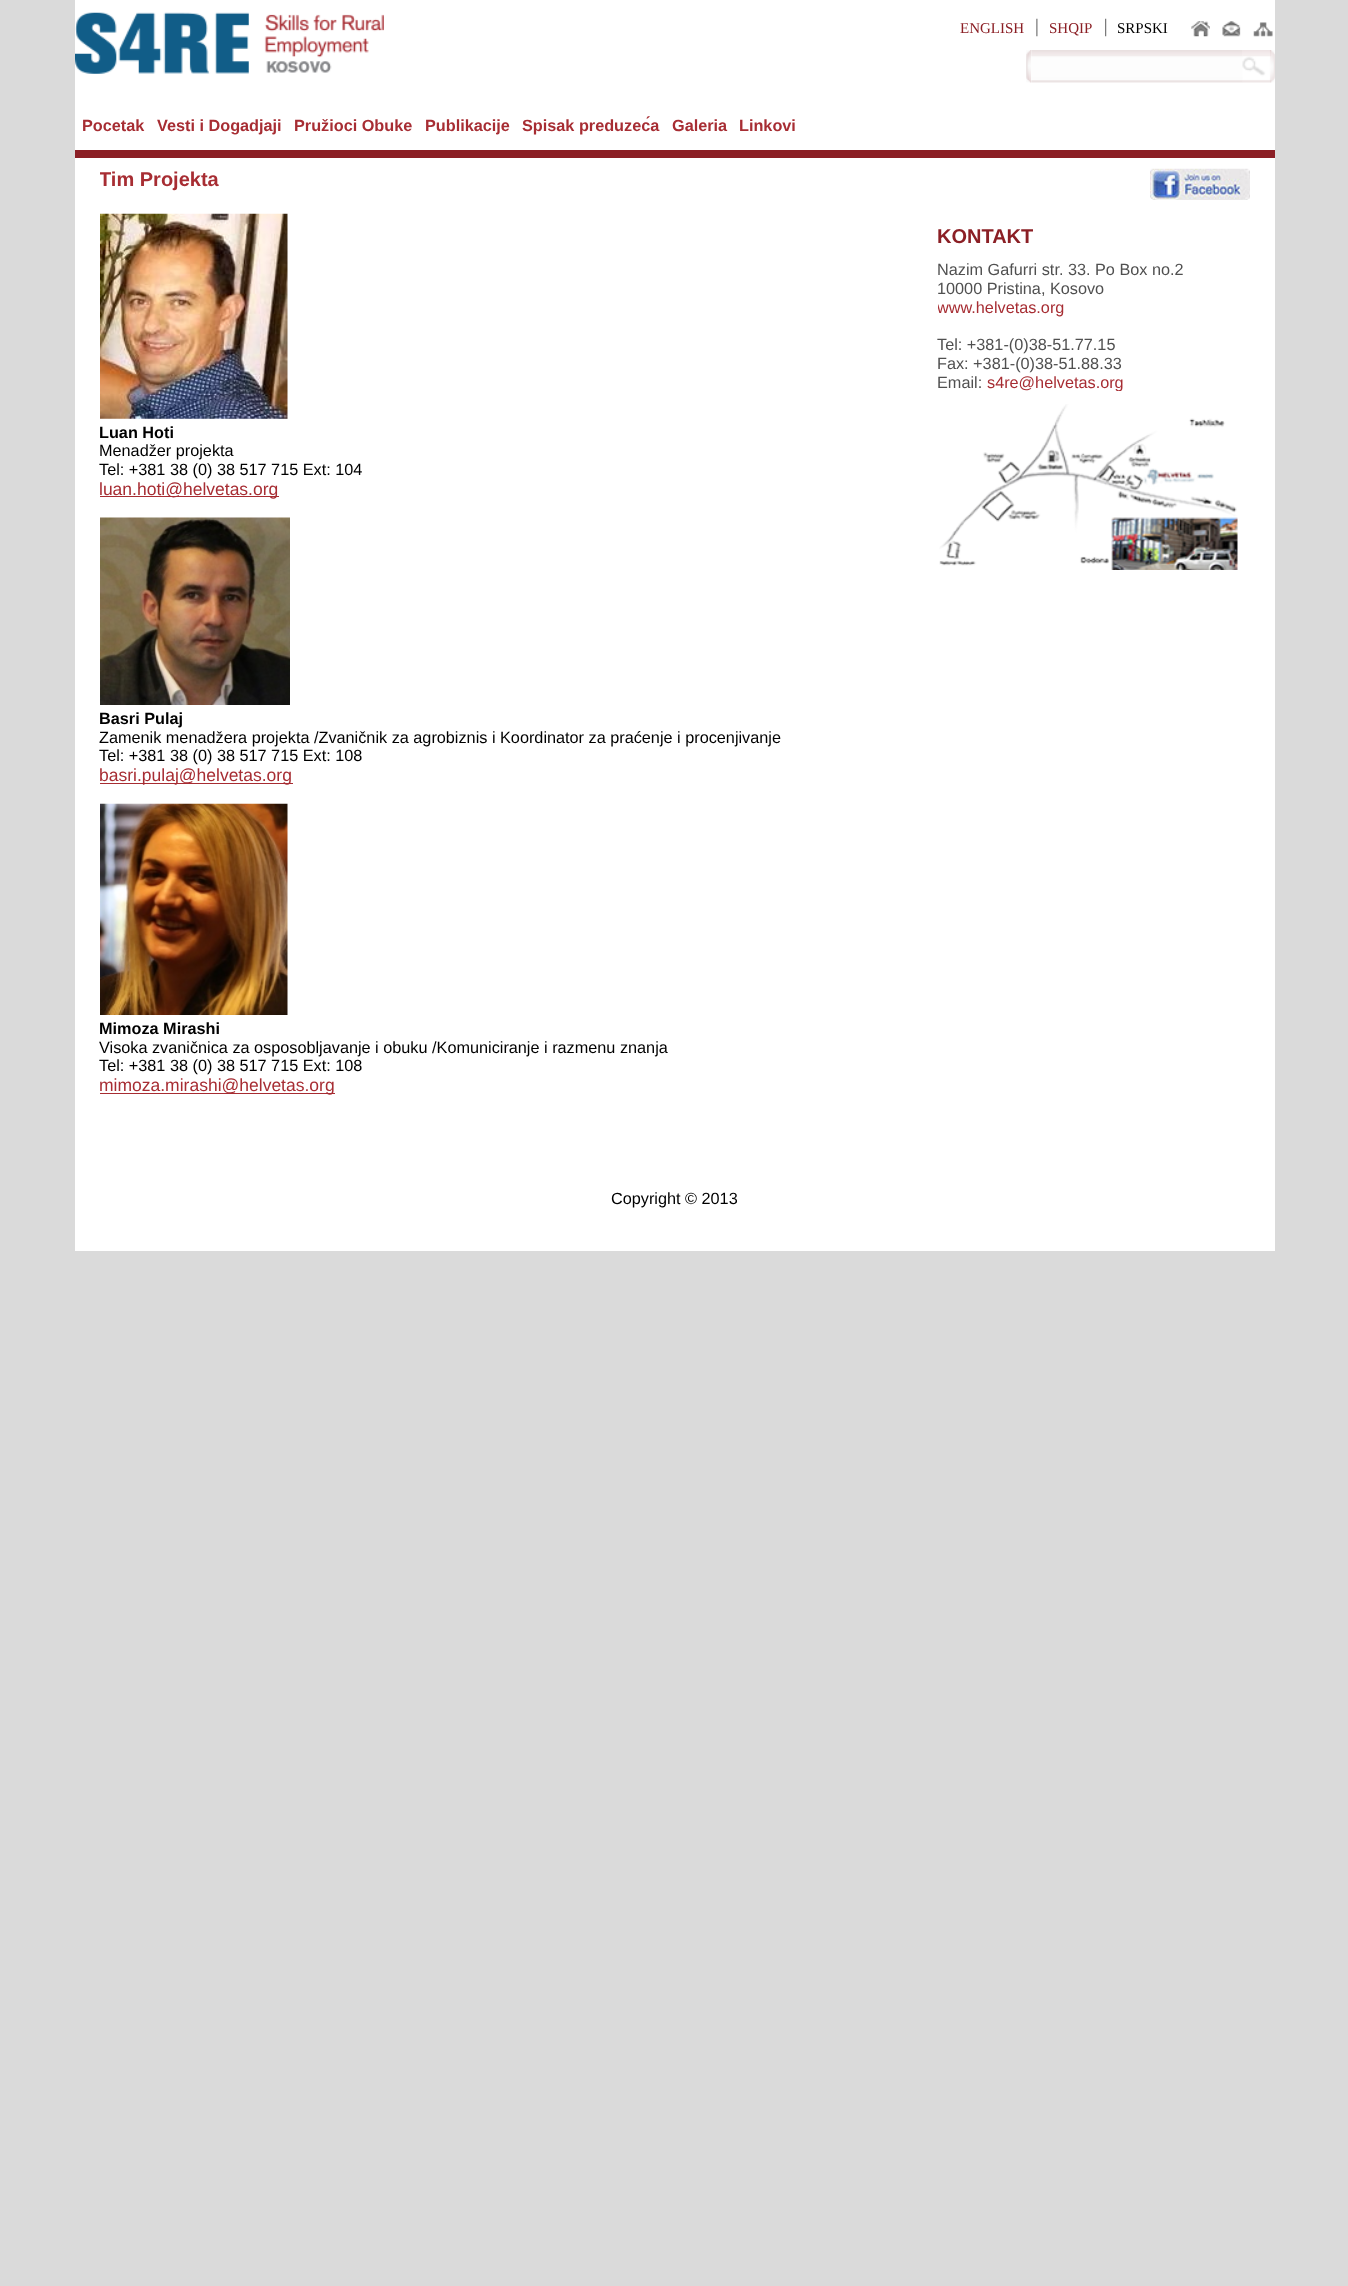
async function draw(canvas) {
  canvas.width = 1348
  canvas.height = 2286
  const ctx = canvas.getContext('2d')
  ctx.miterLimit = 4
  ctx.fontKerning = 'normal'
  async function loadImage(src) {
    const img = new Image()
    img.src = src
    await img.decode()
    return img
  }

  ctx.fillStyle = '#dadada'
  ctx.fillRect(0, 0, 1348, 2286)
  ctx.fillStyle = '#fff'
  ctx.fillRect(75, 0, 1200, 1251)
  ctx.drawImage(await loadImage('image0.png'), 75, 12, 309, 62)
  ctx.font = '15px Liberation Serif'
  ctx.fillStyle = '#8b1f25'
  ctx.fillText('ENGLISH', 960, 33)
  ctx.drawImage(await loadImage('image1.png'), 1036, 18, 2, 19)
  ctx.fillText('SHQIP', 1049, 33)
  ctx.drawImage(await loadImage('image2.png'), 1105, 18, 2, 19)
  ctx.fillStyle = '#000'
  ctx.fillText('SRPSKI', 1117, 33)
  ctx.drawImage(await loadImage('image3.png'), 1191, 21, 19, 16)
  ctx.drawImage(await loadImage('image4.png'), 1222, 21, 19, 16)
  ctx.drawImage(await loadImage('image5.png'), 1253, 22, 20, 15)
  ctx.drawImage(await loadImage('image6.png'), 1026, 50, 5, 33)
  ctx.drawImage(await loadImage('image7.png'), 1031, 50, 212, 33)
  ctx.drawImage(await loadImage('image8.png'), 1242, 50, 33, 33)
  ctx.font = 'bold 16.25px Liberation Sans'
  ctx.fillStyle = '#a72d33'
  ctx.fillText('Pocetak', 82, 131)
  ctx.fillText('Vesti i Dogadjaji', 157, 131)
  ctx.fillText('Pružioci Obuke', 294, 131)
  ctx.fillText('Publikacije', 425, 131)
  ctx.fillText('Spisak preduzeća', 522, 131)
  ctx.fillText('Galeria', 672, 131)
  ctx.fillText('Linkovi', 739, 131)
  ctx.fillStyle = '#8b1f25'
  ctx.fillRect(75, 150, 1200, 8)
  ctx.save()
  ctx.beginPath()
  ctx.rect(100, 169, 750, 22)
  ctx.clip()
  ctx.font = 'bold 20px Liberation Sans'
  ctx.fillStyle = '#a72d33'
  ctx.fillText('Tim Projekta', 99, 186)
  ctx.restore()
  ctx.drawImage(await loadImage('image9.png'), 100, 213, 188, 206)
  ctx.fillStyle = '#000'
  ctx.fillText('Luan Hoti', 99, 438)
  ctx.font = '16.25px Liberation Sans'
  ctx.fillText('Menadžer projekta', 99, 456)
  ctx.fillText('Tel: +381 38 (0) 38 517 715 Ext: 104', 99, 475)
  ctx.fillStyle = '#a72c32'
  ctx.fillRect(100, 496, 179, 1)
  ctx.font = '17.5px Liberation Sans'
  ctx.fillStyle = '#a72d33'
  ctx.fillText('luan.hoti@helvetas.org', 99, 495)
  ctx.drawImage(await loadImage('image10.png'), 100, 517, 190, 188)
  ctx.font = 'bold 16.25px Liberation Sans'
  ctx.fillStyle = '#000'
  ctx.fillText('Basri Pulaj', 99, 724)
  ctx.font = '16.25px Liberation Sans'
  ctx.fillText('Zamenik menadžera projekta /Zvaničnik za agrobiznis i Koordinator za praćenje i procenjivanje', 99, 743)
  ctx.fillText('Tel: +381 38 (0) 38 517 715 Ext: 108', 99, 761)
  ctx.fillStyle = '#a72c32'
  ctx.fillRect(100, 783, 193, 1)
  ctx.font = '17.5px Liberation Sans'
  ctx.fillStyle = '#a72d33'
  ctx.fillText('basri.pulaj@helvetas.org', 99, 781)
  ctx.drawImage(await loadImage('image11.png'), 100, 803, 188, 212)
  ctx.font = 'bold 16.25px Liberation Sans'
  ctx.fillStyle = '#000'
  ctx.fillText('Mimoza Mirashi', 99, 1034)
  ctx.font = '16.25px Liberation Sans'
  ctx.fillText('Visoka zvaničnica za osposobljavanje i obuku /Komuniciranje i razmenu znanja', 99, 1053)
  ctx.fillText('Tel: +381 38 (0) 38 517 715 Ext: 108', 99, 1071)
  ctx.fillStyle = '#a72c32'
  ctx.fillRect(100, 1093, 235, 1)
  ctx.font = '17.5px Liberation Sans'
  ctx.fillStyle = '#a72d33'
  ctx.fillText('mimoza.mirashi@helvetas.org', 99, 1091)
  ctx.drawImage(await loadImage('image12.png'), 1150, 168, 100, 32)
  ctx.font = 'bold 20px Liberation Sans'
  ctx.fillStyle = '#8b1f25'
  ctx.fillText('KONTAKT', 937, 243)
  ctx.font = '16.25px Liberation Sans'
  ctx.fillStyle = '#505050'
  ctx.fillText('Nazim Gafurri str. 33. Po Box no.2', 937, 275)
  ctx.fillText('10000 Pristina, Kosovo', 937, 294)
  ctx.save()
  ctx.beginPath()
  ctx.rect(938, 260, 312, 131)
  ctx.clip()
  ctx.fillStyle = '#a72d33'
  ctx.fillText('www.helvetas.org', 937, 313)
  ctx.restore()
  ctx.fillText('Tel: +381-(0)38-51.77.15', 937, 350)
  ctx.fillText('Fax: +381-(0)38-51.88.33', 937, 369)
  ctx.fillText('Email:', 937, 388)
  ctx.save()
  ctx.beginPath()
  ctx.rect(938, 260, 312, 131)
  ctx.clip()
  ctx.fillStyle = '#a72d33'
  ctx.fillText('s4re@helvetas.org', 987, 388)
  ctx.restore()
  ctx.drawImage(await loadImage('image13.png'), 939, 404, 299, 166)
  ctx.fillStyle = '#000'
  ctx.fillText('Copyright © 2013', 611, 1204)
}

draw(document.querySelector('canvas'))
